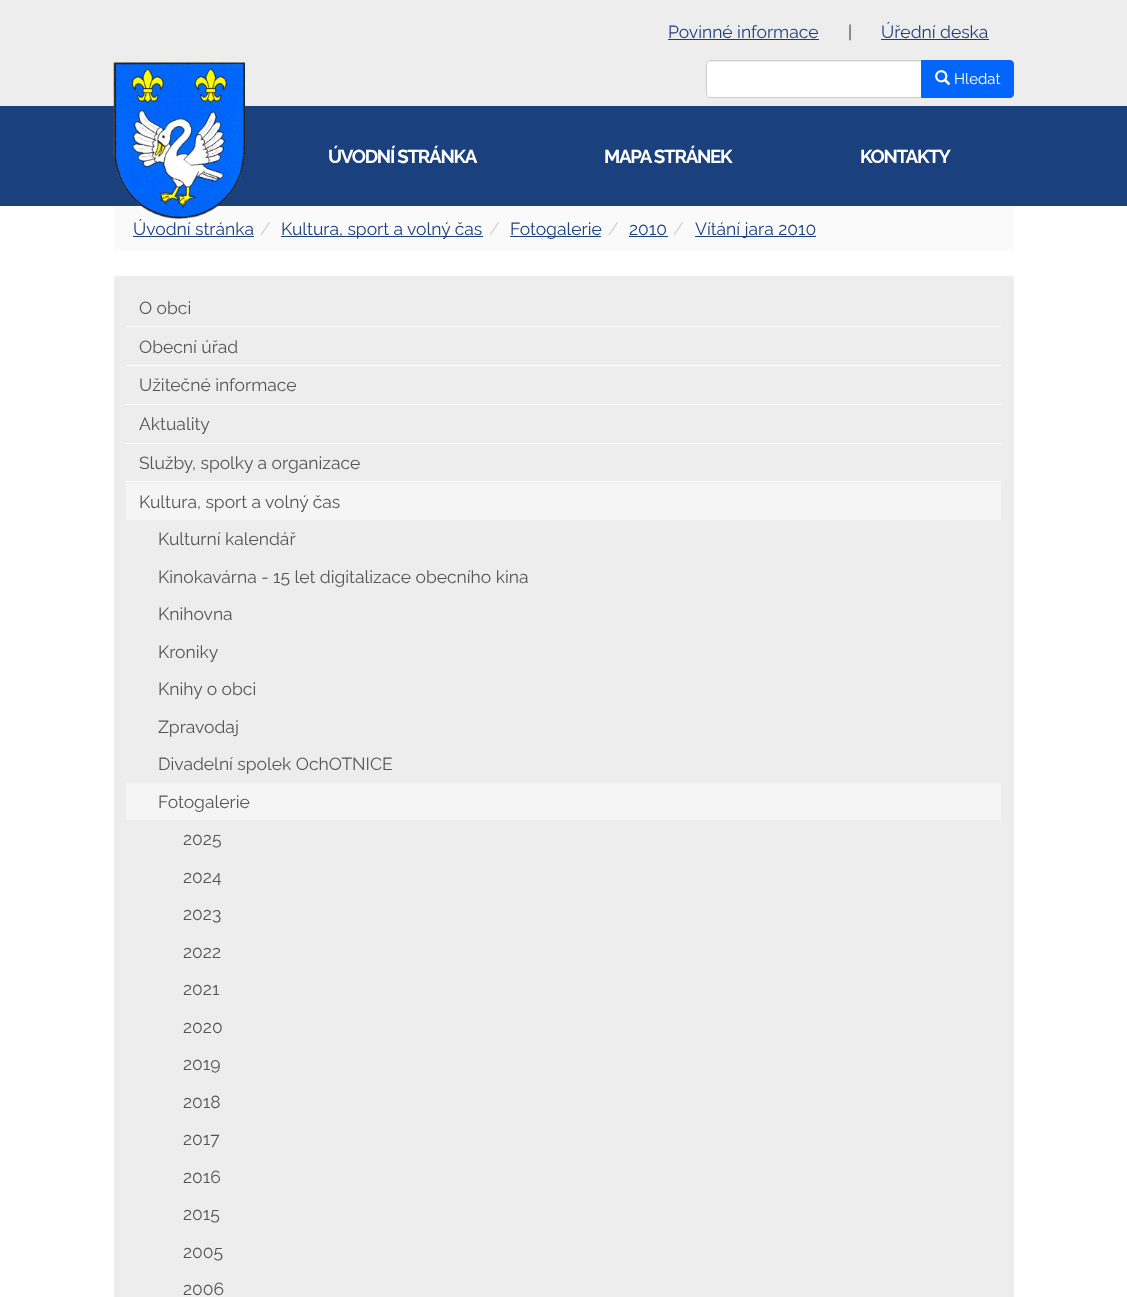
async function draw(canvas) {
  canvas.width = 1127
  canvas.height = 1297
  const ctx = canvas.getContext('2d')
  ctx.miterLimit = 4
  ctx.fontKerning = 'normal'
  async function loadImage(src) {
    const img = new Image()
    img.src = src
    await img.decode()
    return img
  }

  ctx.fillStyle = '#fff'
  ctx.fillRect(0, 0, 1127, 1297)
  ctx.fillStyle = '#ededed'
  ctx.fillRect(0, 0, 1127, 106)
  ctx.font = '17.5px Raleway'
  ctx.fillStyle = '#1b407e'
  ctx.fillText('Povinné informace', 668, 38)
  ctx.fillRect(668, 39, 151, 1)
  ctx.fillStyle = '#333'
  ctx.fillText('|', 848, 38)
  ctx.fillStyle = '#1b407e'
  ctx.fillText('Úřední deska', 881, 38)
  ctx.fillRect(881, 39, 108, 1)
  ctx.fillStyle = '#fff'
  ctx.beginPath()
  ctx.roundRect(706, 60, 217, 38, [4, 0, 0, 4])
  ctx.fill()
  ctx.fillStyle = '#ececec'
  ctx.beginPath()
  ctx.moveTo(710, 62)
  ctx.lineTo(921, 62)
  ctx.lineTo(921, 61)
  ctx.lineTo(710, 61)
  ctx.bezierCurveTo(708, 62, 708, 64, 708, 65)
  ctx.bezierCurveTo(708, 64, 709, 62, 710, 62)
  ctx.closePath()
  ctx.fill()
  ctx.beginPath()
  ctx.roundRect(706.5, 60.5, 216, 37, [3.5, 0, 0, 3.5])
  ctx.strokeStyle = '#ccc'
  ctx.stroke()
  ctx.fillStyle = '#0266fa'
  ctx.beginPath()
  ctx.roundRect(921.5, 60.5, 92, 37, [0, 3.5, 3.5, 0])
  ctx.fill()
  ctx.strokeStyle = '#0266fa'
  ctx.stroke()
  ctx.drawImage(await loadImage('image0.png'), 935, 70, 16, 15)
  ctx.font = '15px Raleway'
  ctx.fillStyle = '#fff'
  ctx.fillText('Hledat', 954, 84)
  ctx.fillStyle = '#1b407e'
  ctx.fillRect(0, 106, 1127, 100)
  ctx.fillStyle = '#fafafa'
  ctx.fillRect(114, 206, 900, 45)
  ctx.font = '17.5px Raleway'
  ctx.fillStyle = '#1b407e'
  ctx.fillText('Úvodní stránka', 133, 235)
  ctx.drawImage(await loadImage('image1.png'), 113, 62, 132, 157)
  ctx.letterSpacing = '-1.25px'
  ctx.font = 'bold 18.75px Raleway'
  ctx.fillStyle = '#fff'
  ctx.fillText('ÚVODNÍ STRÁNKA', 328, 163)
  ctx.fillText('MAPA STRÁNEK', 604, 163)
  ctx.fillText('KONTAKTY', 860, 163)
  ctx.fillStyle = '#1b407e'
  ctx.fillRect(133, 236, 121, 1)
  ctx.letterSpacing = '0px'
  ctx.font = '17.5px Raleway'
  ctx.fillStyle = '#ccc'
  ctx.fillText('/', 260, 235)
  ctx.fillStyle = '#1b407e'
  ctx.fillRect(281, 236, 202, 1)
  ctx.fillText('Kultura, sport a volný čas', 281, 235)
  ctx.fillStyle = '#ccc'
  ctx.fillText('/', 489, 235)
  ctx.fillStyle = '#1b407e'
  ctx.fillRect(510, 236, 91, 1)
  ctx.fillText('Fotogalerie', 510, 235)
  ctx.fillStyle = '#ccc'
  ctx.fillText('/', 608, 235)
  ctx.fillStyle = '#1b407e'
  ctx.fillText('2010', 629, 235)
  ctx.fillRect(629, 236, 39, 1)
  ctx.fillStyle = '#ccc'
  ctx.fillText('/', 673, 235)
  ctx.fillStyle = '#1b407e'
  ctx.fillRect(695, 236, 121, 1)
  ctx.fillText('Vítání jara 2010', 695, 235)
  ctx.fillStyle = '#ededed'
  ctx.fillRect(114, 276, 900, 1021)
  ctx.fillStyle = '#fff'
  ctx.fillRect(126, 326, 875, 1)
  ctx.fillStyle = '#555'
  ctx.fillText('O obci', 139, 314)
  ctx.fillStyle = '#fff'
  ctx.fillRect(126, 365, 875, 1)
  ctx.fillStyle = '#555'
  ctx.fillText('Obecní úřad', 139, 353)
  ctx.fillStyle = '#fff'
  ctx.fillRect(126, 404, 875, 1)
  ctx.fillStyle = '#555'
  ctx.fillText('Užitečné informace', 139, 391)
  ctx.fillStyle = '#fff'
  ctx.fillRect(126, 443, 875, 1)
  ctx.fillStyle = '#555'
  ctx.fillText('Aktuality', 139, 430)
  ctx.fillStyle = '#fff'
  ctx.fillRect(126, 481, 875, 1)
  ctx.fillStyle = '#555'
  ctx.fillText('Služby, spolky a organizace', 139, 469)
  ctx.fillStyle = '#f5f5f5'
  ctx.fillRect(126, 483, 875, 37)
  ctx.fillStyle = '#555'
  ctx.fillText('Kultura, sport a volný čas', 139, 508)
  ctx.fillText('Kulturní kalendář', 158, 545)
  ctx.fillText('Kinokavárna - 15 let digitalizace obecního kina', 158, 583)
  ctx.fillText('Knihovna', 158, 620)
  ctx.fillText('Kroniky', 158, 658)
  ctx.fillText('Knihy o obci', 158, 695)
  ctx.fillText('Zpravodaj', 158, 733)
  ctx.fillText('Divadelní spolek OchOTNICE', 158, 770)
  ctx.fillStyle = '#f5f5f5'
  ctx.fillRect(126, 783, 875, 37)
  ctx.fillStyle = '#555'
  ctx.fillText('Fotogalerie', 158, 808)
  ctx.fillText('2025', 183, 845)
  ctx.fillText('2024', 183, 883)
  ctx.fillText('2023', 183, 920)
  ctx.fillText('2022', 183, 958)
  ctx.fillText('2021', 183, 995)
  ctx.fillText('2020', 183, 1033)
  ctx.fillText('2019', 183, 1070)
  ctx.fillText('2018', 183, 1108)
  ctx.fillText('2017', 183, 1145)
  ctx.fillText('2016', 183, 1183)
  ctx.fillText('2015', 183, 1220)
  ctx.fillText('2005', 183, 1258)
  ctx.fillText('2006', 183, 1295)
}

draw(document.querySelector('canvas'))
